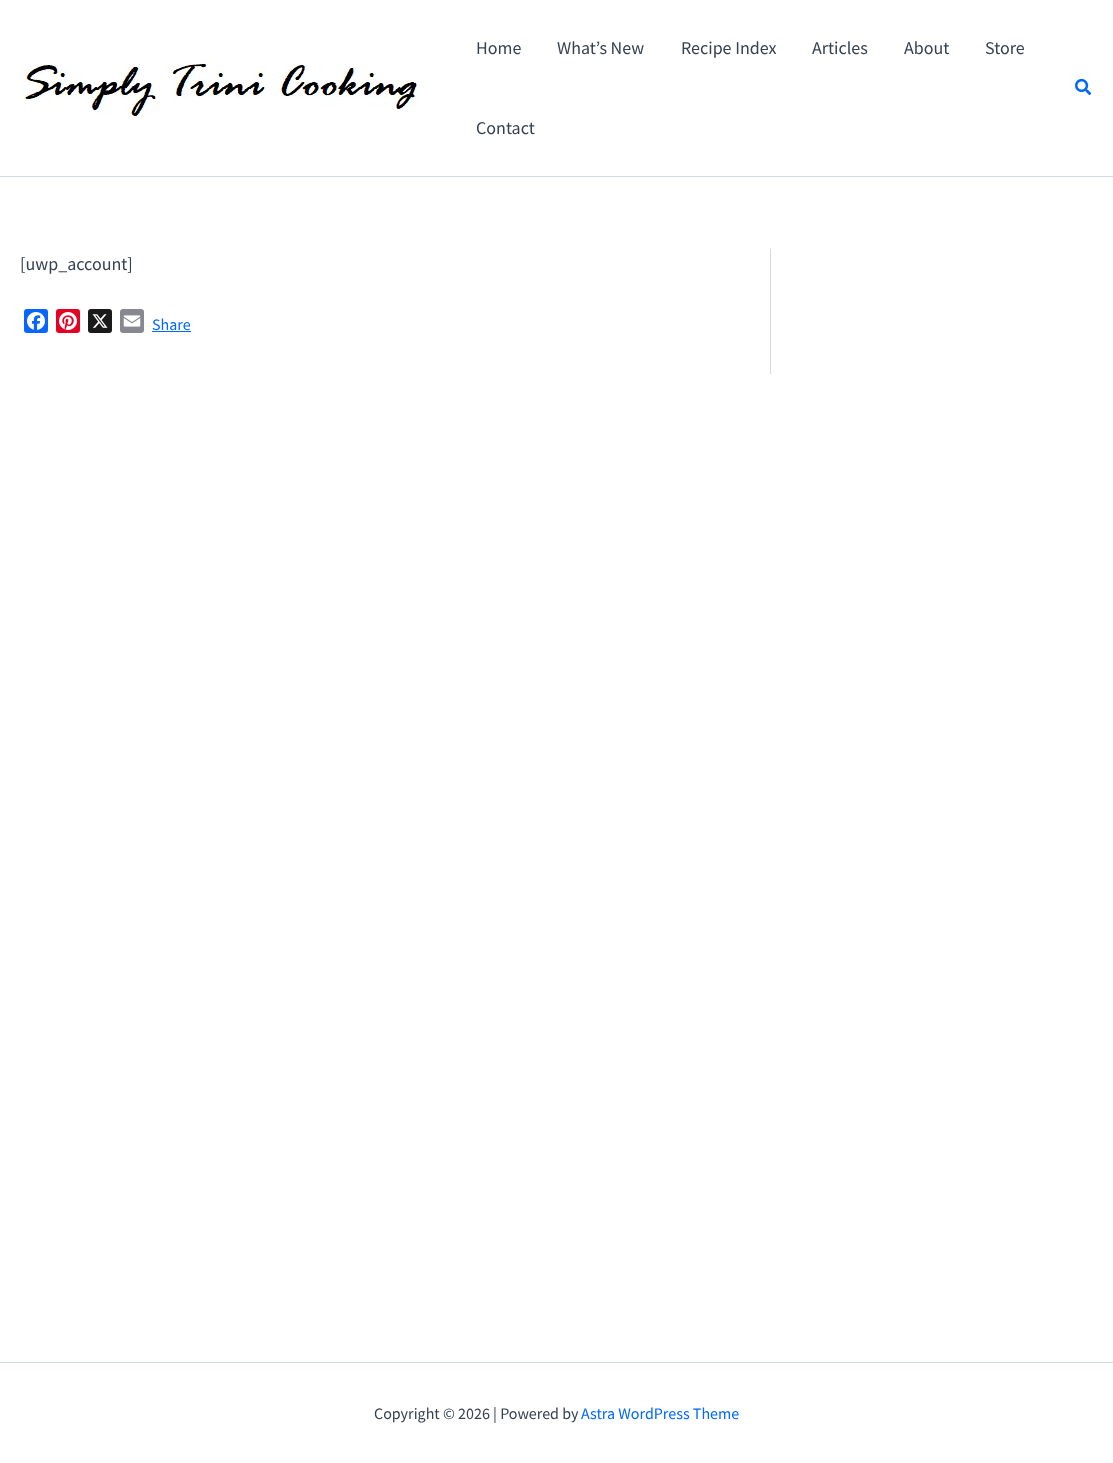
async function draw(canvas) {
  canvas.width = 1113
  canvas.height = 1463
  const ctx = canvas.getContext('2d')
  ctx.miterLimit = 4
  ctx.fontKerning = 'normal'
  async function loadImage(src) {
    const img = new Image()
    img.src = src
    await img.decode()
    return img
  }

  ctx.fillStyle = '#fff'
  ctx.fillRect(0, 0, 1113, 1463)
  ctx.fillStyle = '#d1dae5'
  ctx.fillRect(0, 176, 1113, 1)
  ctx.drawImage(await loadImage('image0.png'), 20, 58, 400, 60)
  ctx.font = '18px Source Sans Pro'
  ctx.fillStyle = '#364151'
  ctx.fillText('Home', 476, 54)
  ctx.fillText('What’s New', 557, 54)
  ctx.fillText('Recipe Index', 681, 54)
  ctx.fillText('Articles', 812, 54)
  ctx.fillText('About', 904, 54)
  ctx.fillText('Store', 985, 54)
  ctx.fillText('Contact', 476, 134)
  ctx.drawImage(await loadImage('image1.png'), 1075, 78, 16, 17)
  ctx.fillText('[uwp_account]', 20, 270)
  ctx.fillStyle = '#0866ff'
  ctx.beginPath()
  ctx.roundRect(24, 309, 24, 24, 3)
  ctx.fill()
  ctx.drawImage(await loadImage('image2.png'), 27, 312, 18, 18)
  ctx.fillStyle = '#e60023'
  ctx.beginPath()
  ctx.roundRect(56, 309, 24, 24, 3)
  ctx.fill()
  ctx.drawImage(await loadImage('image3.png'), 59, 312, 18, 18)
  ctx.fillStyle = '#1a1a1a'
  ctx.beginPath()
  ctx.roundRect(88, 309, 24, 24, 3)
  ctx.fill()
  ctx.drawImage(await loadImage('image4.png'), 92, 314, 16, 14)
  ctx.fillStyle = '#888990'
  ctx.beginPath()
  ctx.roundRect(120, 309, 24, 24, 3)
  ctx.fill()
  ctx.drawImage(await loadImage('image5.png'), 123, 315, 18, 12)
  ctx.font = '16px Source Sans Pro'
  ctx.fillStyle = '#0067ff'
  ctx.fillText('Share', 152, 330)
  ctx.fillRect(152, 331, 39, 1)
  ctx.fillStyle = '#d1dae5'
  ctx.fillRect(770, 249, 1, 125)
  ctx.fillRect(0, 1362, 1113, 1)
  ctx.fillStyle = '#364151'
  ctx.fillText('Copyright © 2026 | Powered by', 374, 1419)
  ctx.fillStyle = '#0067ff'
  ctx.fillText('Astra WordPress Theme', 581, 1419)
}

draw(document.querySelector('canvas'))
